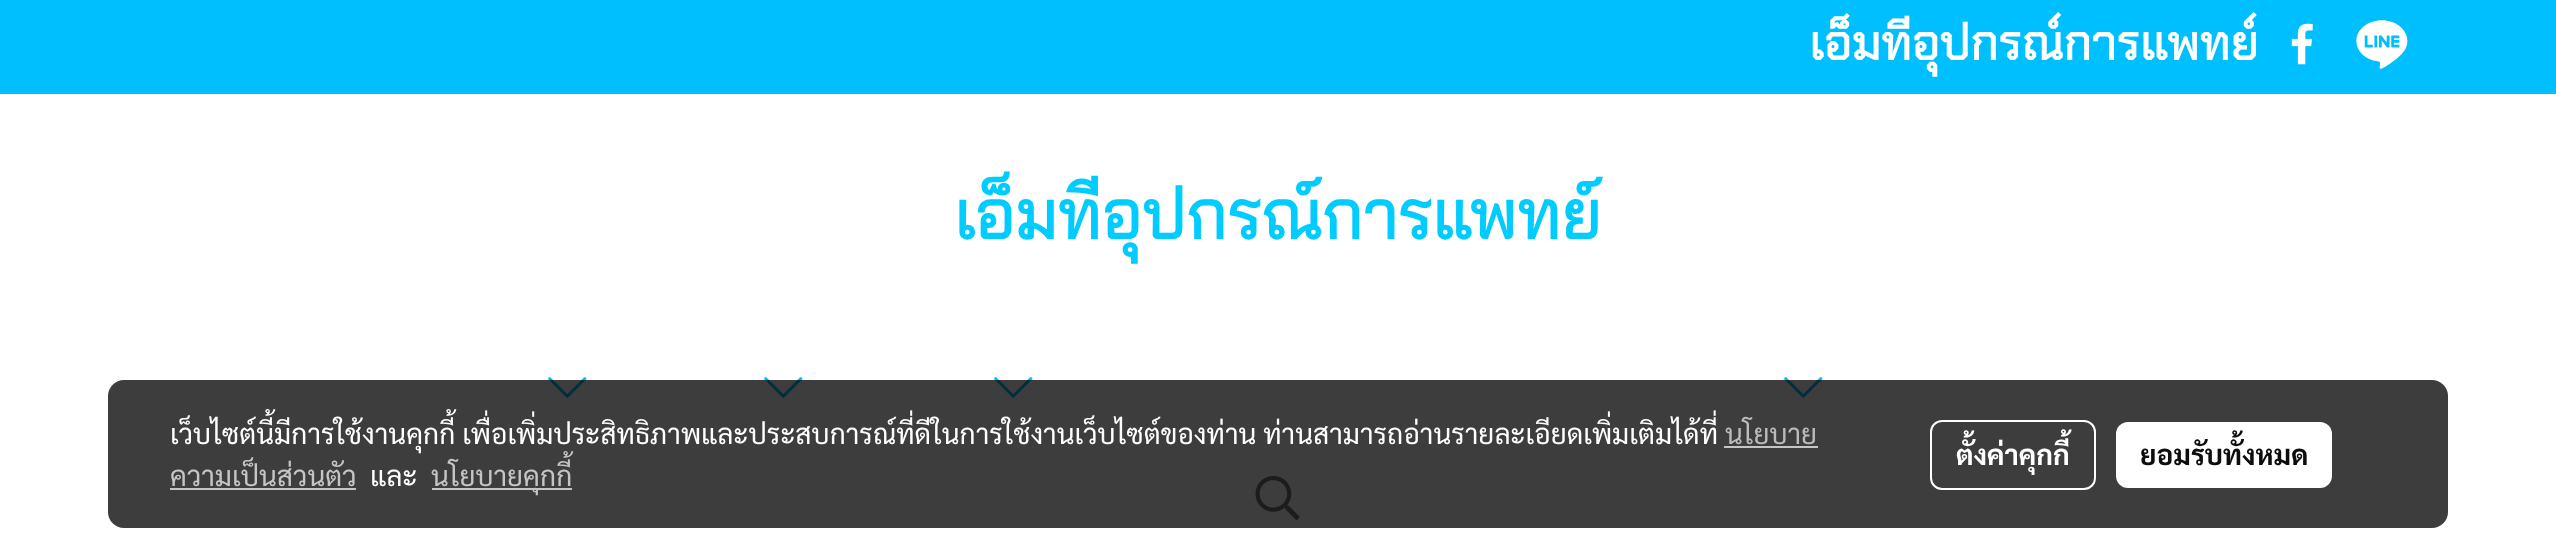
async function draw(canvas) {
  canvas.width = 2556
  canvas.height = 544
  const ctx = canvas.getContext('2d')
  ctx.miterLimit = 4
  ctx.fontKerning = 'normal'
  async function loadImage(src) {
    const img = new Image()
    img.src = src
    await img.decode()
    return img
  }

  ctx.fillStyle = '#fff'
  ctx.fillRect(0, 0, 2556, 544)
  ctx.fillStyle = '#00bfff'
  ctx.fillRect(0, 0, 2556, 94)
  ctx.save()
  ctx.beginPath()
  ctx.rect(1808, 12, 450, 70)
  ctx.clip()
  ctx.font = 'bold 48px Chakra Petch'
  ctx.fillStyle = '#fff'
  ctx.fillText('เอ็มทีอุปกรณ์การแพทย์', 1809, 60)
  ctx.restore()
  ctx.drawImage(await loadImage('image0.png'), 2291, 23, 22, 42)
  ctx.drawImage(await loadImage('image1.png'), 2356, 20, 52, 49)
  ctx.font = 'bold 68px Bai Jamjuree'
  ctx.fillStyle = '#0cf'
  ctx.fillText('เอ็มทีอุปกรณ์การแพทย์', 954, 239)
  ctx.drawImage(await loadImage('image2.png'), 548, 377, 39, 21)
  ctx.drawImage(await loadImage('image2.png'), 764, 377, 39, 21)
  ctx.drawImage(await loadImage('image2.png'), 994, 377, 39, 21)
  ctx.drawImage(await loadImage('image2.png'), 1784, 377, 39, 21)
  ctx.drawImage(await loadImage('image3.png'), 1255, 476, 45, 44)
  ctx.fillStyle = '#000000c2'
  ctx.beginPath()
  ctx.roundRect(108, 380, 2340, 148, 16)
  ctx.fill()
  ctx.font = '28px Sarabun'
  ctx.fillStyle = '#fff'
  ctx.fillText('เว็บไซต์นี้มีการใช้งานคุกกี้ เพื่อเพิ่มประสิทธิภาพและประสบการณ์ที่ดีในการใช้งานเว็บไซต์ของท่าน ท่านสามารถอ่านรายละเอียดเพิ่มเติมได้ที่', 170, 444)
  ctx.fillStyle = '#bbb'
  ctx.fillText('นโยบาย', 1725, 444)
  ctx.fillStyle = '#c5c5c5'
  ctx.fillRect(1724, 446, 94, 2)
  ctx.fillText('ความเป็นส่วนตัว', 170, 486)
  ctx.fillRect(170, 488, 186, 2)
  ctx.fillStyle = '#fff'
  ctx.fillText('และ', 370, 486)
  ctx.fillStyle = '#c5c5c5'
  ctx.fillRect(432, 488, 140, 2)
  ctx.fillText('นโยบายคุกกี้', 431, 486)
  ctx.beginPath()
  ctx.roundRect(1931, 421, 164, 68, 11)
  ctx.strokeStyle = '#fff'
  ctx.lineWidth = 2
  ctx.stroke()
  ctx.font = 'bold 28px Sarabun'
  ctx.fillStyle = '#fff'
  ctx.fillText('ตั้งค่าคุกกี้', 1956, 465)
  ctx.beginPath()
  ctx.roundRect(2116, 422, 216, 66, 12)
  ctx.fill()
  ctx.fillStyle = '#0d0d0d'
  ctx.fillText('ยอมรับทั้งหมด', 2140, 465)
}

draw(document.querySelector('canvas'))
